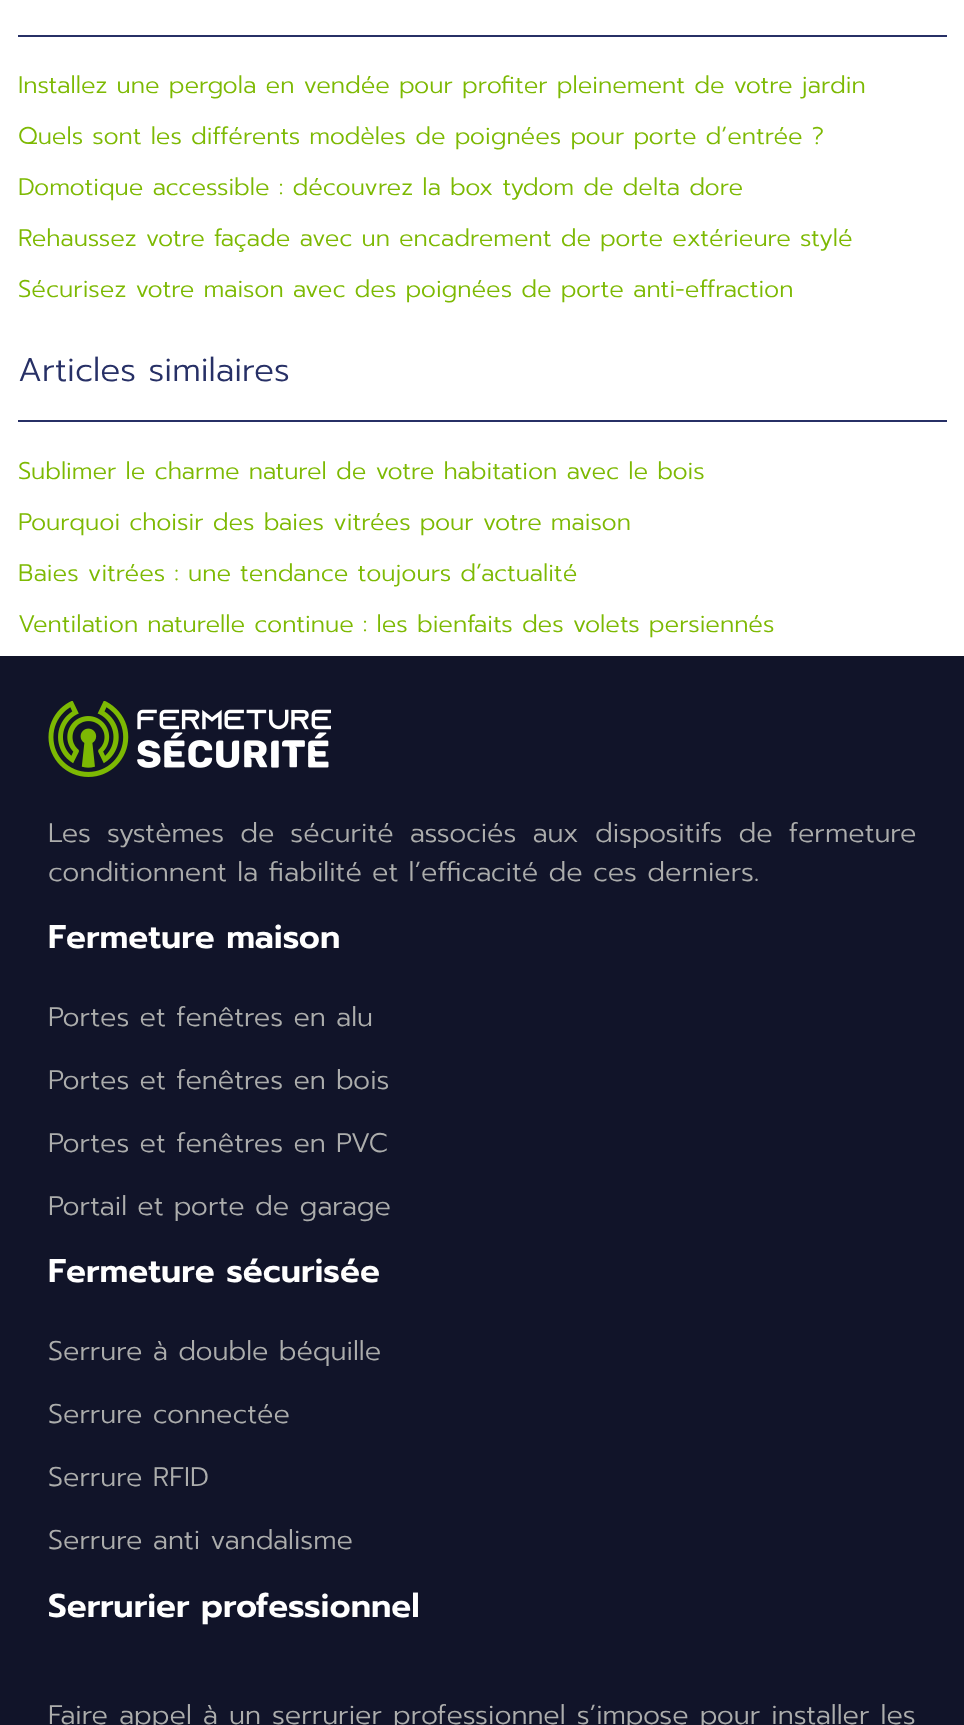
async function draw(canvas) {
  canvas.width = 964
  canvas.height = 1725
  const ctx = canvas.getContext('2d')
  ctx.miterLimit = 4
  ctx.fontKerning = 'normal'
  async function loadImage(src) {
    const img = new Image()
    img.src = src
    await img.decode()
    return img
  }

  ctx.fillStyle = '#fff'
  ctx.fillRect(0, 0, 964, 1725)
  ctx.fillStyle = '#273066'
  ctx.fillRect(18, 35, 929, 2)
  ctx.font = '300 24px Prompt'
  ctx.fillStyle = '#7db903'
  ctx.fillText('Installez une pergola en vendée pour profiter pleinement de votre jardin', 18, 93)
  ctx.fillText('Quels sont les différents modèles de poignées pour porte d’entrée ?', 18, 144)
  ctx.fillText('Domotique accessible : découvrez la box tydom de delta dore', 18, 195)
  ctx.fillText('Rehaussez votre façade avec un encadrement de porte extérieure stylé', 18, 246)
  ctx.fillText('Sécurisez votre maison avec des poignées de porte anti-effraction', 18, 297)
  ctx.fillStyle = '#273066'
  ctx.fillRect(18, 420, 929, 2)
  ctx.font = '300 33px Prompt'
  ctx.fillText('Articles similaires', 18, 381)
  ctx.font = '300 24px Prompt'
  ctx.fillStyle = '#7db903'
  ctx.fillText('Sublimer le charme naturel de votre habitation avec le bois', 18, 479)
  ctx.fillText('Pourquoi choisir des baies vitrées pour votre maison', 18, 530)
  ctx.fillText('Baies vitrées : une tendance toujours d’actualité', 18, 581)
  ctx.fillText('Ventilation naturelle continue : les bienfaits des volets persiennés', 18, 632)
  ctx.fillStyle = '#111429'
  ctx.fillRect(0, 656, 964, 1069)
  ctx.drawImage(await loadImage('image0.png'), 48, 701, 283, 76)
  ctx.wordSpacing = '5.75px'
  ctx.font = '300 27px Prompt'
  ctx.fillStyle = '#acadac'
  ctx.fillText('Les systèmes de sécurité associés aux dispositifs de fermeture', 48, 842)
  ctx.wordSpacing = '0px'
  ctx.fillText('conditionnent la fiabilité et l’efficacité de ces derniers.', 48, 881)
  ctx.font = '600 33px Prompt'
  ctx.fillStyle = '#fff'
  ctx.fillText('Fermeture maison', 48, 948)
  ctx.font = '300 27px Prompt'
  ctx.fillStyle = '#acadac'
  ctx.fillText('Portes et fenêtres en alu', 48, 1026)
  ctx.fillText('Portes et fenêtres en bois', 48, 1089)
  ctx.fillText('Portes et fenêtres en PVC', 48, 1152)
  ctx.fillText('Portail et porte de garage', 48, 1215)
  ctx.font = '600 33px Prompt'
  ctx.fillStyle = '#fff'
  ctx.fillText('Fermeture sécurisée', 48, 1282)
  ctx.font = '300 27px Prompt'
  ctx.fillStyle = '#acadac'
  ctx.fillText('Serrure à double béquille', 48, 1360)
  ctx.fillText('Serrure connectée', 48, 1423)
  ctx.fillText('Serrure RFID', 48, 1486)
  ctx.fillText('Serrure anti vandalisme', 48, 1549)
  ctx.font = '600 33px Prompt'
  ctx.fillStyle = '#fff'
  ctx.fillText('Serrurier professionnel', 48, 1617)
  ctx.wordSpacing = '0.75px'
  ctx.font = '300 27px Prompt'
  ctx.fillStyle = '#acadac'
  ctx.fillText('Faire appel à un serrurier professionnel s’impose pour installer les', 48, 1724)
}

draw(document.querySelector('canvas'))
